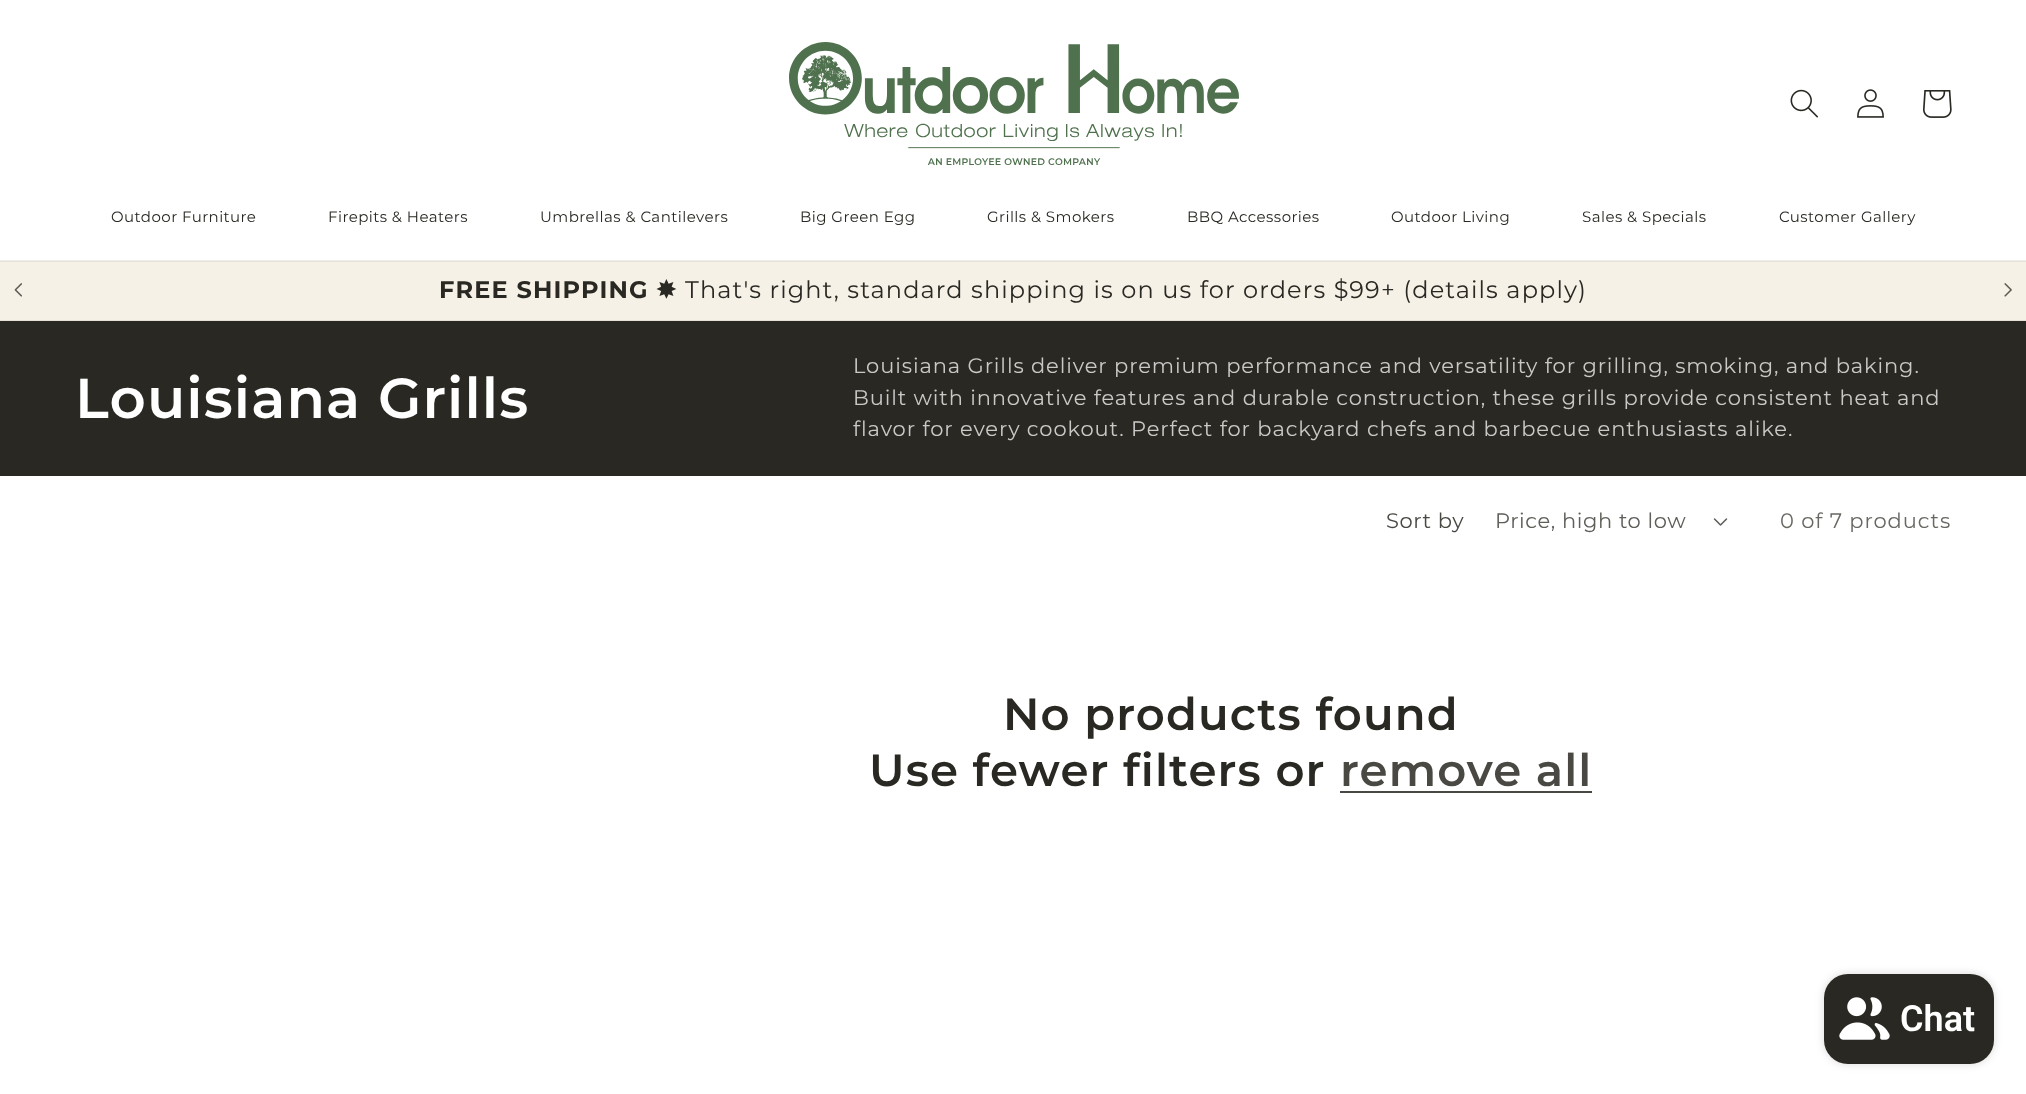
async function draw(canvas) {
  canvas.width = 2026
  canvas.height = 1094
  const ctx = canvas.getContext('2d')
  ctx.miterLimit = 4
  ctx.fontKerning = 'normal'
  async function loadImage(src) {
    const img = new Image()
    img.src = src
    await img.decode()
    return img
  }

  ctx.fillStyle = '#fff'
  ctx.fillRect(0, 0, 2026, 1094)
  ctx.fillStyle = '#eeeeed'
  ctx.fillRect(0, 260, 2026, 1)
  ctx.drawImage(await loadImage('image0.png'), 789, 42, 450, 123)
  ctx.drawImage(await loadImage('image1.png'), 1790, 89, 28, 29)
  ctx.drawImage(await loadImage('image2.png'), 1857, 89, 27, 29)
  ctx.drawImage(await loadImage('image3.png'), 1923, 90, 29, 28)
  ctx.letterSpacing = '0.45px'
  ctx.font = '15px Montserrat'
  ctx.fillStyle = '#292822'
  ctx.fillText('Outdoor Furniture', 111, 222)
  ctx.fillText('Firepits & Heaters', 328, 222)
  ctx.fillText('Umbrellas & Cantilevers', 540, 222)
  ctx.fillText('Big Green Egg', 800, 222)
  ctx.fillText('Grills & Smokers', 987, 222)
  ctx.fillText('BBQ Accessories', 1187, 222)
  ctx.fillText('Outdoor Living', 1391, 222)
  ctx.fillText('Sales & Specials', 1582, 222)
  ctx.fillText('Customer Gallery', 1779, 222)
  ctx.fillStyle = '#f5f1e7'
  ctx.fillRect(0, 262, 2026, 58)
  ctx.fillStyle = '#e5e1d7'
  ctx.fillRect(0, 261, 2026, 1)
  ctx.fillRect(0, 320, 2026, 1)
  ctx.drawImage(await loadImage('image4.png'), 14, 283, 8, 14)
  ctx.letterSpacing = '1.12px'
  ctx.font = 'bold 24px Montserrat'
  ctx.fillStyle = '#292822'
  ctx.fillText('FREE SHIPPING', 439, 298)
  ctx.font = 'bold 24px DejaVu Sans'
  ctx.fillText('✸', 656, 298)
  ctx.font = '24px Montserrat'
  ctx.fillText('That\'s right, standard shipping is on us for orders $99+ (details apply)', 685, 298)
  ctx.drawImage(await loadImage('image5.png'), 2004, 283, 8, 14)
  ctx.fillRect(0, 321, 2026, 155)
  ctx.font = '600 56.25px Montserrat'
  ctx.fillStyle = '#fff'
  ctx.fillText('Louisiana Grills', 75, 418)
  ctx.letterSpacing = '0.9px'
  ctx.font = '21px Montserrat'
  ctx.fillStyle = '#cac9c8'
  ctx.fillText('Louisiana Grills deliver premium performance and versatility for grilling, smoking, and baking.', 853, 373)
  ctx.fillText('Built with innovative features and durable construction, these grills provide consistent heat and', 853, 405)
  ctx.fillText('flavor for every cookout. Perfect for backyard chefs and barbecue enthusiasts alike.', 853, 436)
  ctx.letterSpacing = '0.6px'
  ctx.fillStyle = '#494843'
  ctx.fillText('Sort by', 1386, 528)
  ctx.fillStyle = '#5f5e59'
  ctx.fillText('Price, high to low', 1495, 528)
  ctx.drawImage(await loadImage('image6.png'), 1713, 518, 15, 8)
  ctx.letterSpacing = '0.9px'
  ctx.fillStyle = '#696964'
  ctx.fillText('0 of 7 products', 1780, 528)
  ctx.letterSpacing = '1.12px'
  ctx.font = '600 45px Montserrat'
  ctx.fillStyle = '#292822'
  ctx.fillText('No products found', 1003, 730)
  ctx.fillText('Use fewer filters or', 869, 786)
  ctx.fillStyle = '#494843'
  ctx.fillText('remove all', 1340, 786)
  ctx.fillRect(1340, 791, 252, 2)
  ctx.fillStyle = '#00000026'
  ctx.filter = 'blur(4px)'
  ctx.beginPath()
  ctx.roundRect(1824, 974, 170, 90, 24)
  ctx.fill()
  ctx.filter = 'none'
  ctx.fillStyle = '#292822'
  ctx.beginPath()
  ctx.roundRect(1824, 974, 170, 90, 24)
  ctx.fill()
  ctx.drawImage(await loadImage('image7.png'), 1839, 997, 51, 43)
  ctx.letterSpacing = '0px'
  ctx.font = '600 36px Roboto'
  ctx.fillStyle = '#fff'
  ctx.fillText('Chat', 1900, 1031)
}

draw(document.querySelector('canvas'))
